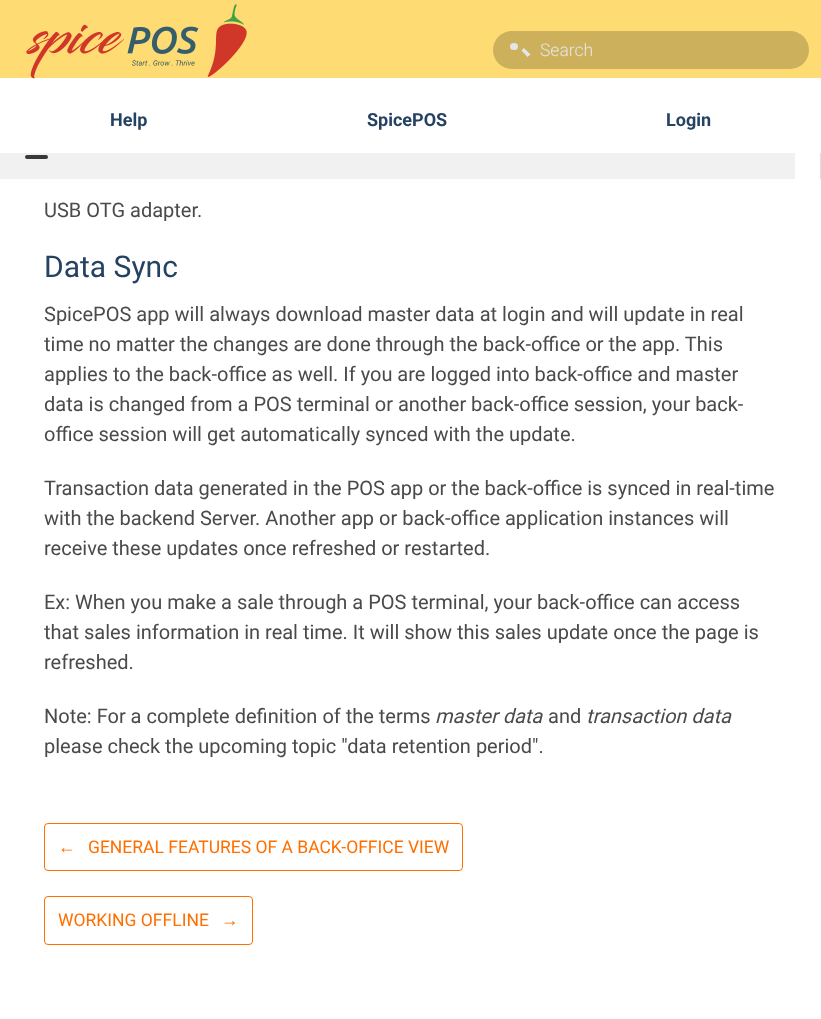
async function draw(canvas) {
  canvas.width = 821
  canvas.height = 1019
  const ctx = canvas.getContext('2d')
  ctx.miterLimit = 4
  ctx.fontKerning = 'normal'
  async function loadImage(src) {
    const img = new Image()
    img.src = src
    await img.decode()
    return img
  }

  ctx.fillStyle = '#fff'
  ctx.fillRect(0, 0, 821, 1019)
  ctx.fillStyle = '#ffdc73'
  ctx.fillRect(0, 0, 821, 78)
  ctx.drawImage(await loadImage('image0.png'), 26, 4, 221, 75)
  ctx.fillStyle = '#ccb05c'
  ctx.beginPath()
  ctx.roundRect(493, 31, 316, 38, 19)
  ctx.fill()
  ctx.fillStyle = '#e5e5e5'
  ctx.beginPath()
  ctx.roundRect(510, 43, 8, 7, 3.5)
  ctx.fill()
  ctx.font = '300 17.5px Roboto'
  ctx.fillText('Search', 540, 56)
  ctx.beginPath()
  ctx.moveTo(521.5, 50.5)
  ctx.lineTo(524, 48)
  ctx.lineTo(530.5, 54.5)
  ctx.lineTo(527.5, 57)
  ctx.closePath()
  ctx.fill()
  ctx.font = 'bold 18px Roboto'
  ctx.fillStyle = '#254263'
  ctx.fillText('Help', 110, 126)
  ctx.fillText('SpicePOS', 367, 126)
  ctx.fillText('Login', 666, 126)
  ctx.fillStyle = '#e0e0e0'
  ctx.fillRect(820, 153, 1, 26)
  ctx.fillStyle = '#f1f1f1'
  ctx.fillRect(0, 153, 795, 26)
  ctx.fillStyle = '#393939'
  ctx.beginPath()
  ctx.roundRect(25, 155, 23, 4, 2)
  ctx.fill()
  ctx.font = '20px Roboto'
  ctx.fillStyle = '#4a4a4a'
  ctx.fillText('USB OTG adapter.', 44, 217)
  ctx.font = '30px Roboto'
  ctx.fillStyle = '#254263'
  ctx.fillText('Data Sync', 44, 277)
  ctx.font = '20px Roboto'
  ctx.fillStyle = '#4a4a4a'
  ctx.fillText('SpicePOS app will always download master data at login and will update in real', 44, 321)
  ctx.fillText('time no matter the changes are done through the back-office or the app. This', 44, 351)
  ctx.fillText('applies to the back-office as well. If you are logged into back-office and master', 44, 381)
  ctx.fillText('data is changed from a POS terminal or another back-office session, your back-', 44, 411)
  ctx.fillText('office session will get automatically synced with the update.', 44, 441)
  ctx.fillText('Transaction data generated in the POS app or the back-office is synced in real-time', 44, 495)
  ctx.fillText('with the backend Server. Another app or back-office application instances will', 44, 525)
  ctx.fillText('receive these updates once refreshed or restarted.', 44, 555)
  ctx.fillText('Ex: When you make a sale through a POS terminal, your back-office can access', 44, 609)
  ctx.fillText('that sales information in real time. It will show this sales update once the page is', 44, 639)
  ctx.fillText('refreshed.', 44, 669)
  ctx.fillText('Note: For a complete definition of the terms', 44, 723)
  ctx.font = 'italic 20px Roboto'
  ctx.fillText('master data', 435, 723)
  ctx.font = '20px Roboto'
  ctx.fillText('and', 548, 723)
  ctx.font = 'italic 20px Roboto'
  ctx.fillText('transaction data', 586, 723)
  ctx.font = '20px Roboto'
  ctx.fillText('please check the upcoming topic "data retention period".', 44, 753)
  ctx.beginPath()
  ctx.roundRect(44.5, 823.5, 418, 47, 3.5)
  ctx.strokeStyle = '#ff6f00'
  ctx.stroke()
  ctx.font = '17.5px Liberation Sans'
  ctx.fillStyle = '#ff6f00'
  ctx.fillText('←', 58, 853)
  ctx.font = '17.5px Roboto'
  ctx.fillText('GENERAL FEATURES OF A BACK-OFFICE VIEW', 88, 853)
  ctx.beginPath()
  ctx.roundRect(44.5, 896.5, 208, 48, 3.5)
  ctx.stroke()
  ctx.fillText('WORKING OFFLINE', 58, 926)
  ctx.font = '17.5px Liberation Sans'
  ctx.fillText('→', 221, 926)
}

draw(document.querySelector('canvas'))
